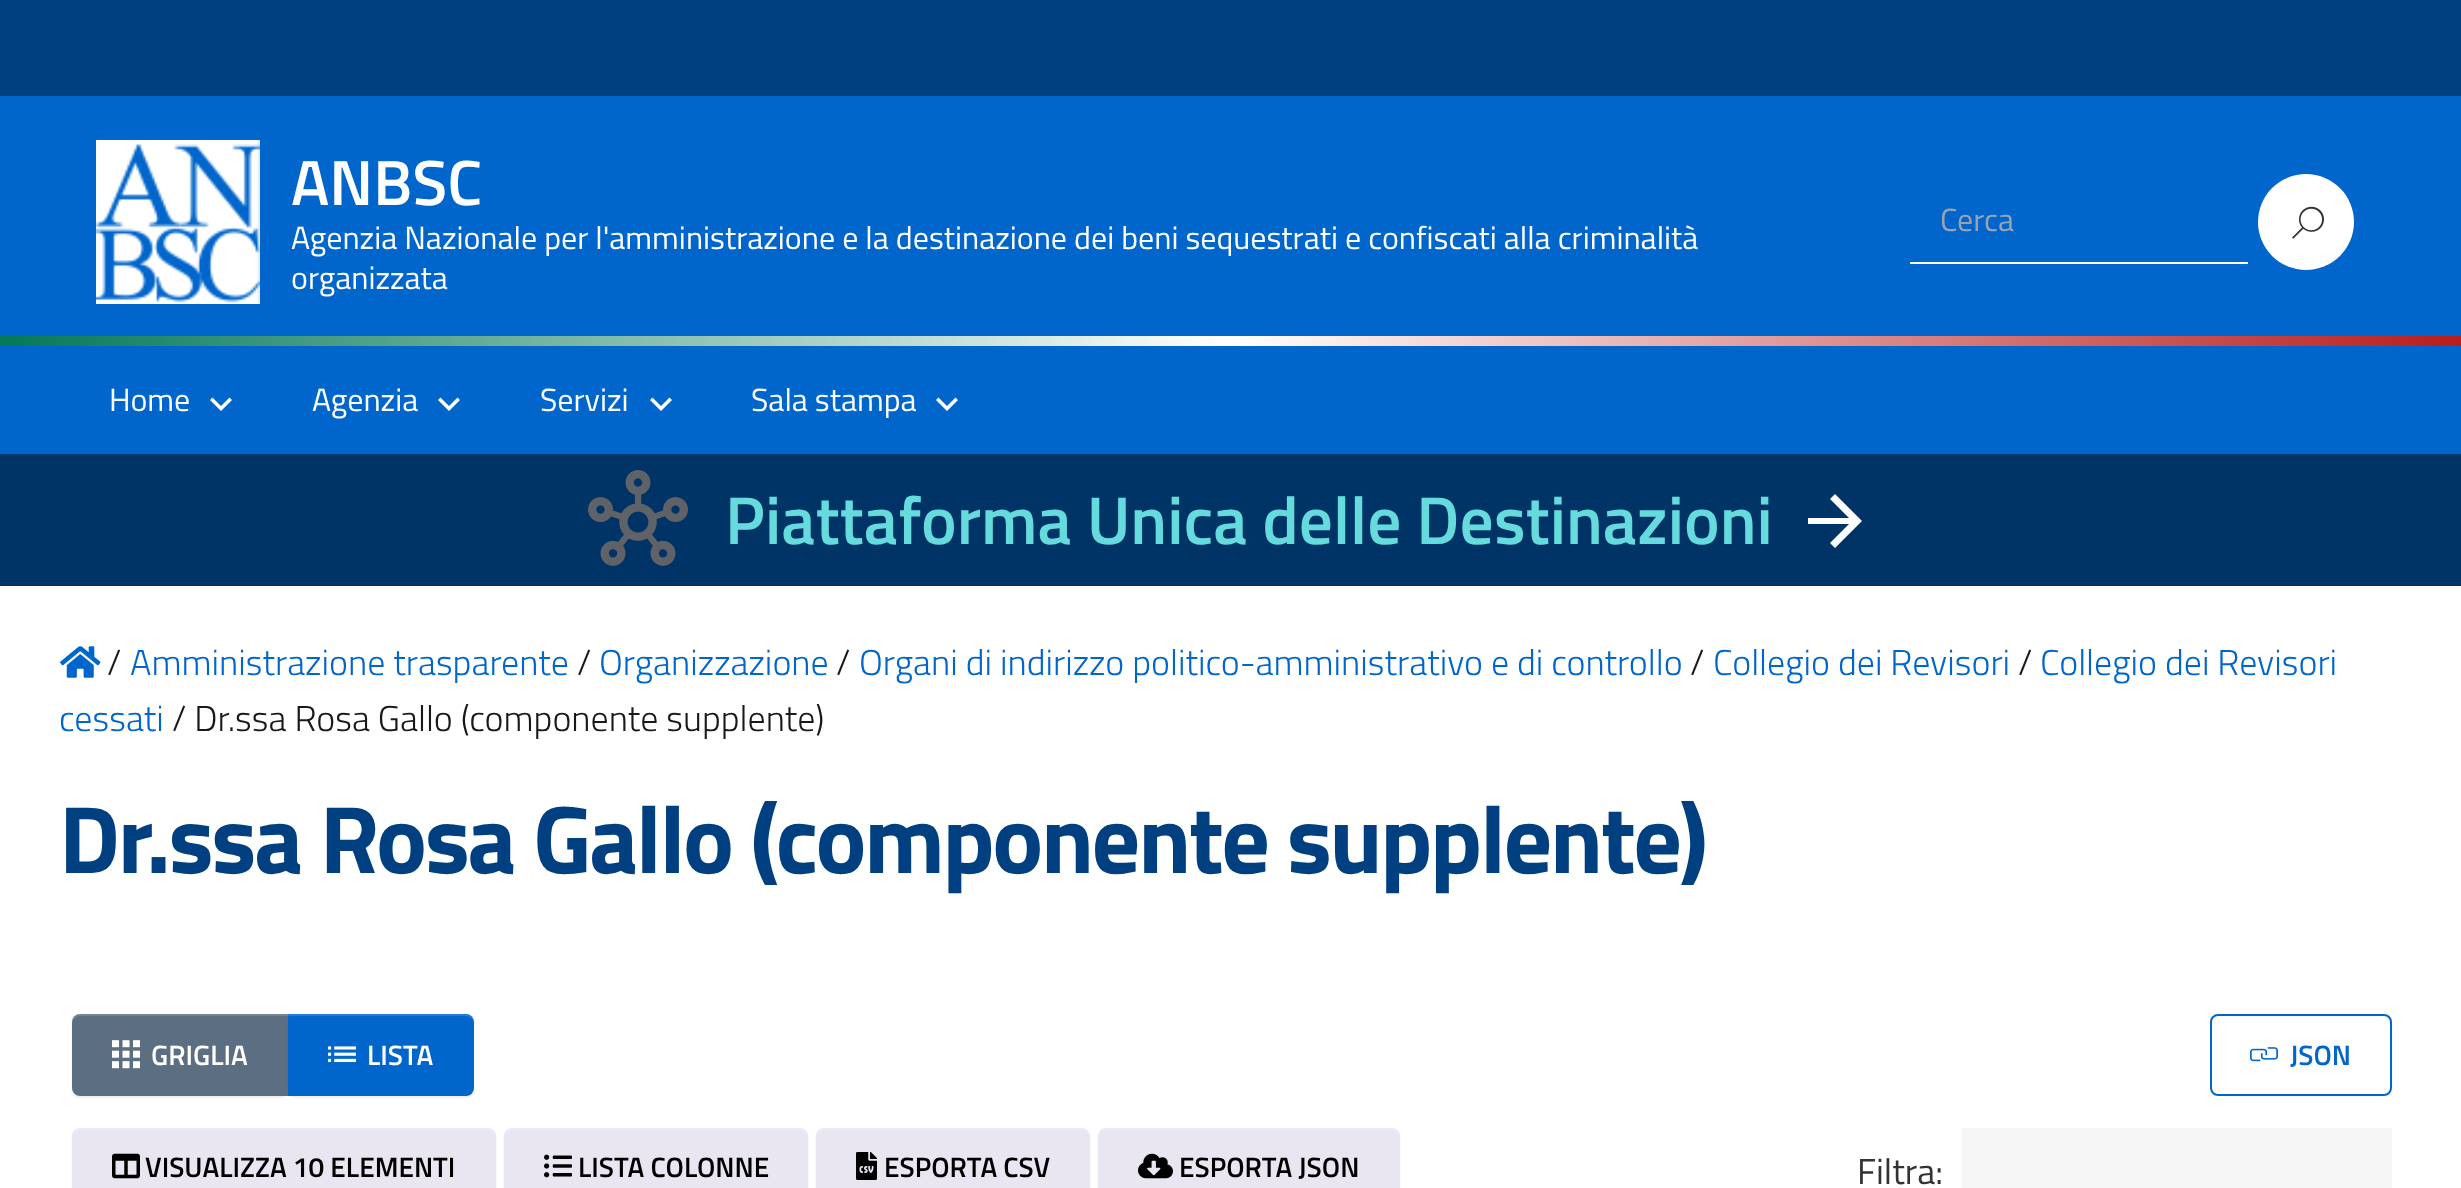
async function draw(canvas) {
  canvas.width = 2461
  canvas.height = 1188
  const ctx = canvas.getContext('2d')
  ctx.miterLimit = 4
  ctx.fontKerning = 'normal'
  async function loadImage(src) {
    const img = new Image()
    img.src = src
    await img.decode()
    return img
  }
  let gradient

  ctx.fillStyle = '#fff'
  ctx.fillRect(0, 0, 2461, 1188)
  ctx.fillStyle = '#06c'
  ctx.fillRect(0, 96, 2461, 358)
  ctx.fillStyle = '#014080'
  ctx.fillRect(0, 0, 2461, 96)
  ctx.drawImage(await loadImage('image0.png'), 96, 140, 164, 164)
  ctx.font = '600 64px Titillium Web'
  ctx.fillStyle = '#fff'
  ctx.fillText('ANBSC', 291, 205)
  ctx.font = '32px Titillium Web'
  ctx.fillText('Agenzia Nazionale per l\'amministrazione e la destinazione dei beni sequestrati e confiscati alla criminalità', 291, 249)
  ctx.fillText('organizzata', 291, 289)
  ctx.fillRect(1910, 262, 338, 2)
  ctx.fillStyle = '#9ca3af'
  ctx.fillText('Cerca', 1940, 231)
  ctx.fillStyle = '#fff'
  ctx.beginPath()
  ctx.arc(2306, 222, 48, 0, 2 * Math.PI)
  ctx.fill()
  ctx.drawImage(await loadImage('image1.png'), 2292, 206, 32, 33)
  gradient = ctx.createLinearGradient(0, 341, 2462, 341)
  gradient.addColorStop(0, '#047857')
  gradient.addColorStop(0.5, '#fff')
  gradient.addColorStop(1, '#b91c1c')
  ctx.fillStyle = gradient
  ctx.fillRect(0, 336, 2461, 10)
  ctx.fillStyle = '#fff'
  ctx.fillText('Home', 109, 411)
  ctx.beginPath()
  ctx.moveTo(212.5, 397.5)
  ctx.lineTo(210, 400)
  ctx.lineTo(221, 411)
  ctx.lineTo(232, 400)
  ctx.lineTo(229.5, 397.5)
  ctx.lineTo(221, 406)
  ctx.closePath()
  ctx.fill()
  ctx.fillText('Agenzia', 312, 411)
  ctx.beginPath()
  ctx.moveTo(440.5, 397.5)
  ctx.lineTo(438, 400)
  ctx.lineTo(449, 411)
  ctx.lineTo(460, 400)
  ctx.lineTo(457.5, 397.5)
  ctx.lineTo(449, 406)
  ctx.closePath()
  ctx.fill()
  ctx.fillText('Servizi', 540, 411)
  ctx.beginPath()
  ctx.moveTo(652.5, 397.5)
  ctx.lineTo(650, 400)
  ctx.lineTo(661, 411)
  ctx.lineTo(672, 400)
  ctx.lineTo(669.5, 397.5)
  ctx.lineTo(661, 406)
  ctx.closePath()
  ctx.fill()
  ctx.fillText('Sala stampa', 751, 411)
  ctx.beginPath()
  ctx.moveTo(938.5, 397.5)
  ctx.lineTo(936, 400)
  ctx.lineTo(947, 411)
  ctx.lineTo(958, 400)
  ctx.lineTo(955.5, 397.5)
  ctx.lineTo(947, 406)
  ctx.closePath()
  ctx.fill()
  ctx.fillStyle = '#036'
  ctx.fillRect(0, 454, 2461, 132)
  ctx.drawImage(await loadImage('image2.png'), 588, 470, 100, 96)
  ctx.font = '600 67.5px Titillium Web'
  ctx.fillStyle = '#65dbde'
  ctx.fillText('Piattaforma Unica delle Destinazioni', 725, 544)
  ctx.fillStyle = '#fff'
  ctx.beginPath()
  ctx.moveTo(1808, 524)
  ctx.lineTo(1849, 524)
  ctx.lineTo(1830, 543)
  ctx.lineTo(1835, 548)
  ctx.lineTo(1862, 521)
  ctx.lineTo(1835, 494)
  ctx.lineTo(1830, 499)
  ctx.lineTo(1849, 518)
  ctx.lineTo(1808, 518)
  ctx.closePath()
  ctx.fill()
  ctx.drawImage(await loadImage('image3.png'), 60, 646, 41, 32)
  ctx.font = '300 36px Titillium Web'
  ctx.fillStyle = '#19191a'
  ctx.fillText('/', 107, 675)
  ctx.fillStyle = '#06c'
  ctx.fillText('Amministrazione trasparente', 130, 675)
  ctx.fillStyle = '#19191a'
  ctx.fillText('/', 577, 675)
  ctx.fillStyle = '#06c'
  ctx.fillText('Organizzazione', 599, 675)
  ctx.fillStyle = '#19191a'
  ctx.fillText('/', 836, 675)
  ctx.fillStyle = '#06c'
  ctx.fillText('Organi di indirizzo politico-amministrativo e di controllo', 859, 675)
  ctx.fillStyle = '#19191a'
  ctx.fillText('/', 1690, 675)
  ctx.fillStyle = '#06c'
  ctx.fillText('Collegio dei Revisori', 1713, 675)
  ctx.fillStyle = '#19191a'
  ctx.fillText('/', 2018, 675)
  ctx.fillStyle = '#06c'
  ctx.fillText('Collegio dei Revisori', 2040, 675)
  ctx.fillText('cessati', 59, 731)
  ctx.fillStyle = '#19191a'
  ctx.fillText('/ Dr.ssa Rosa Gallo (componente supplente)', 172, 731)
  ctx.letterSpacing = '-2.4px'
  ctx.font = 'bold 96px Titillium Web'
  ctx.fillStyle = '#004080'
  ctx.fillText('Dr.ssa Rosa Gallo (componente supplente)', 59, 873)
  ctx.fillStyle = '#00000012'
  ctx.filter = 'blur(1px)'
  ctx.beginPath()
  ctx.roundRect(72, 1016, 216, 82, 8)
  ctx.fill()
  ctx.filter = 'none'
  ctx.fillStyle = '#5c6f82'
  ctx.beginPath()
  ctx.roundRect(72, 1014, 216, 82, [8, 0, 0, 8])
  ctx.fill()
  ctx.fillStyle = '#ffffff26'
  ctx.beginPath()
  ctx.moveTo(80, 1016)
  ctx.lineTo(288, 1016)
  ctx.lineTo(288, 1014)
  ctx.lineTo(80, 1014)
  ctx.bezierCurveTo(76, 1014, 72, 1018, 72, 1022)
  ctx.lineTo(72, 1024)
  ctx.bezierCurveTo(72, 1020, 76, 1016, 80, 1016)
  ctx.closePath()
  ctx.fill()
  ctx.drawImage(await loadImage('image4.png'), 112, 1040, 28, 29)
  ctx.letterSpacing = '0px'
  ctx.font = '600 28px Titillium Web'
  ctx.fillStyle = '#fff'
  ctx.fillText('GRIGLIA', 151, 1065)
  ctx.fillStyle = '#00000012'
  ctx.filter = 'blur(1px)'
  ctx.beginPath()
  ctx.roundRect(288, 1016, 186, 82, 8)
  ctx.fill()
  ctx.filter = 'none'
  ctx.fillStyle = '#06c'
  ctx.beginPath()
  ctx.roundRect(288, 1014, 186, 82, [0, 8, 8, 0])
  ctx.fill()
  ctx.fillStyle = '#ffffff26'
  ctx.beginPath()
  ctx.moveTo(288, 1016)
  ctx.lineTo(466, 1016)
  ctx.bezierCurveTo(470, 1016, 474, 1020, 474, 1024)
  ctx.lineTo(474, 1022)
  ctx.bezierCurveTo(474, 1018, 470, 1014, 466, 1014)
  ctx.lineTo(288, 1014)
  ctx.closePath()
  ctx.fill()
  ctx.drawImage(await loadImage('image5.png'), 328, 1046, 28, 16)
  ctx.fillStyle = '#fff'
  ctx.fillText('LISTA', 367, 1065)
  ctx.beginPath()
  ctx.roundRect(2211, 1015, 180, 80, 7)
  ctx.strokeStyle = '#06c'
  ctx.lineWidth = 2
  ctx.stroke()
  ctx.drawImage(await loadImage('image6.png'), 2250, 1047, 28, 15)
  ctx.fillStyle = '#06c'
  ctx.fillText('JSON', 2290, 1065)
  ctx.fillStyle = '#00000012'
  ctx.filter = 'blur(1px)'
  ctx.beginPath()
  ctx.roundRect(72, 1130, 424, 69, 8)
  ctx.fill()
  ctx.filter = 'none'
  ctx.fillStyle = '#e9e6f2'
  ctx.beginPath()
  ctx.roundRect(72, 1128, 424, 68, 8)
  ctx.fill()
  ctx.fillStyle = '#ffffff26'
  ctx.beginPath()
  ctx.moveTo(80, 1130)
  ctx.lineTo(488, 1130)
  ctx.bezierCurveTo(492, 1130, 496, 1134, 496, 1138)
  ctx.lineTo(496, 1136)
  ctx.bezierCurveTo(496, 1132, 492, 1128, 488, 1128)
  ctx.lineTo(80, 1128)
  ctx.bezierCurveTo(76, 1128, 72, 1132, 72, 1136)
  ctx.lineTo(72, 1138)
  ctx.bezierCurveTo(72, 1134, 76, 1130, 80, 1130)
  ctx.closePath()
  ctx.fill()
  ctx.drawImage(await loadImage('image7.png'), 112, 1153, 28, 26)
  ctx.fillStyle = '#000'
  ctx.fillText('VISUALIZZA 10 ELEMENTI', 145, 1177)
  ctx.fillStyle = '#00000012'
  ctx.filter = 'blur(1px)'
  ctx.beginPath()
  ctx.roundRect(504, 1130, 304, 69, 8)
  ctx.fill()
  ctx.filter = 'none'
  ctx.fillStyle = '#e9e6f2'
  ctx.beginPath()
  ctx.roundRect(504, 1128, 304, 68, 8)
  ctx.fill()
  ctx.fillStyle = '#ffffff26'
  ctx.beginPath()
  ctx.moveTo(512, 1130)
  ctx.lineTo(800, 1130)
  ctx.bezierCurveTo(804, 1130, 808, 1134, 808, 1138)
  ctx.bezierCurveTo(808, 1134, 807, 1129, 802, 1128)
  ctx.lineTo(512, 1128)
  ctx.bezierCurveTo(506, 1128, 504, 1133, 504, 1138)
  ctx.bezierCurveTo(504, 1134, 508, 1130, 512, 1130)
  ctx.closePath()
  ctx.fill()
  ctx.drawImage(await loadImage('image8.png'), 544, 1154, 28, 24)
  ctx.fillStyle = '#000'
  ctx.fillText('LISTA COLONNE', 578, 1177)
  ctx.fillStyle = '#00000012'
  ctx.filter = 'blur(1px)'
  ctx.beginPath()
  ctx.roundRect(816, 1130, 274, 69, 8)
  ctx.fill()
  ctx.filter = 'none'
  ctx.fillStyle = '#e9e6f2'
  ctx.beginPath()
  ctx.roundRect(816, 1128, 274, 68, 8)
  ctx.fill()
  ctx.fillStyle = '#ffffff26'
  ctx.beginPath()
  ctx.moveTo(824, 1130)
  ctx.lineTo(1082, 1130)
  ctx.bezierCurveTo(1086, 1130, 1090, 1134, 1090, 1138)
  ctx.lineTo(1090, 1136)
  ctx.bezierCurveTo(1090, 1132, 1086, 1128, 1082, 1128)
  ctx.lineTo(824, 1128)
  ctx.bezierCurveTo(820, 1128, 816, 1132, 816, 1136)
  ctx.lineTo(816, 1138)
  ctx.bezierCurveTo(816, 1134, 820, 1130, 824, 1130)
  ctx.closePath()
  ctx.fill()
  ctx.drawImage(await loadImage('image9.png'), 856, 1152, 21, 28)
  ctx.fillStyle = '#000'
  ctx.fillText('ESPORTA CSV', 884, 1177)
  ctx.fillStyle = '#00000012'
  ctx.filter = 'blur(1px)'
  ctx.beginPath()
  ctx.roundRect(1098, 1130, 302, 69, 8)
  ctx.fill()
  ctx.filter = 'none'
  ctx.fillStyle = '#e9e6f2'
  ctx.beginPath()
  ctx.roundRect(1098, 1128, 302, 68, 8)
  ctx.fill()
  ctx.fillStyle = '#ffffff26'
  ctx.beginPath()
  ctx.moveTo(1106, 1130)
  ctx.lineTo(1392, 1130)
  ctx.bezierCurveTo(1396, 1130, 1400, 1134, 1400, 1138)
  ctx.lineTo(1400, 1136)
  ctx.bezierCurveTo(1400, 1132, 1396, 1128, 1392, 1128)
  ctx.lineTo(1106, 1128)
  ctx.bezierCurveTo(1102, 1128, 1098, 1132, 1098, 1136)
  ctx.lineTo(1098, 1138)
  ctx.bezierCurveTo(1098, 1134, 1102, 1130, 1106, 1130)
  ctx.closePath()
  ctx.fill()
  ctx.drawImage(await loadImage('image10.png'), 1138, 1153, 35, 26)
  ctx.fillStyle = '#000'
  ctx.fillText('ESPORTA JSON', 1179, 1177)
  ctx.font = '36px Titillium Web'
  ctx.fillStyle = '#333'
  ctx.fillText('Filtra:', 1857, 1184)
  ctx.fillStyle = '#f6f6f6'
  ctx.fillRect(1962, 1128, 430, 60)
}

draw(document.querySelector('canvas'))
